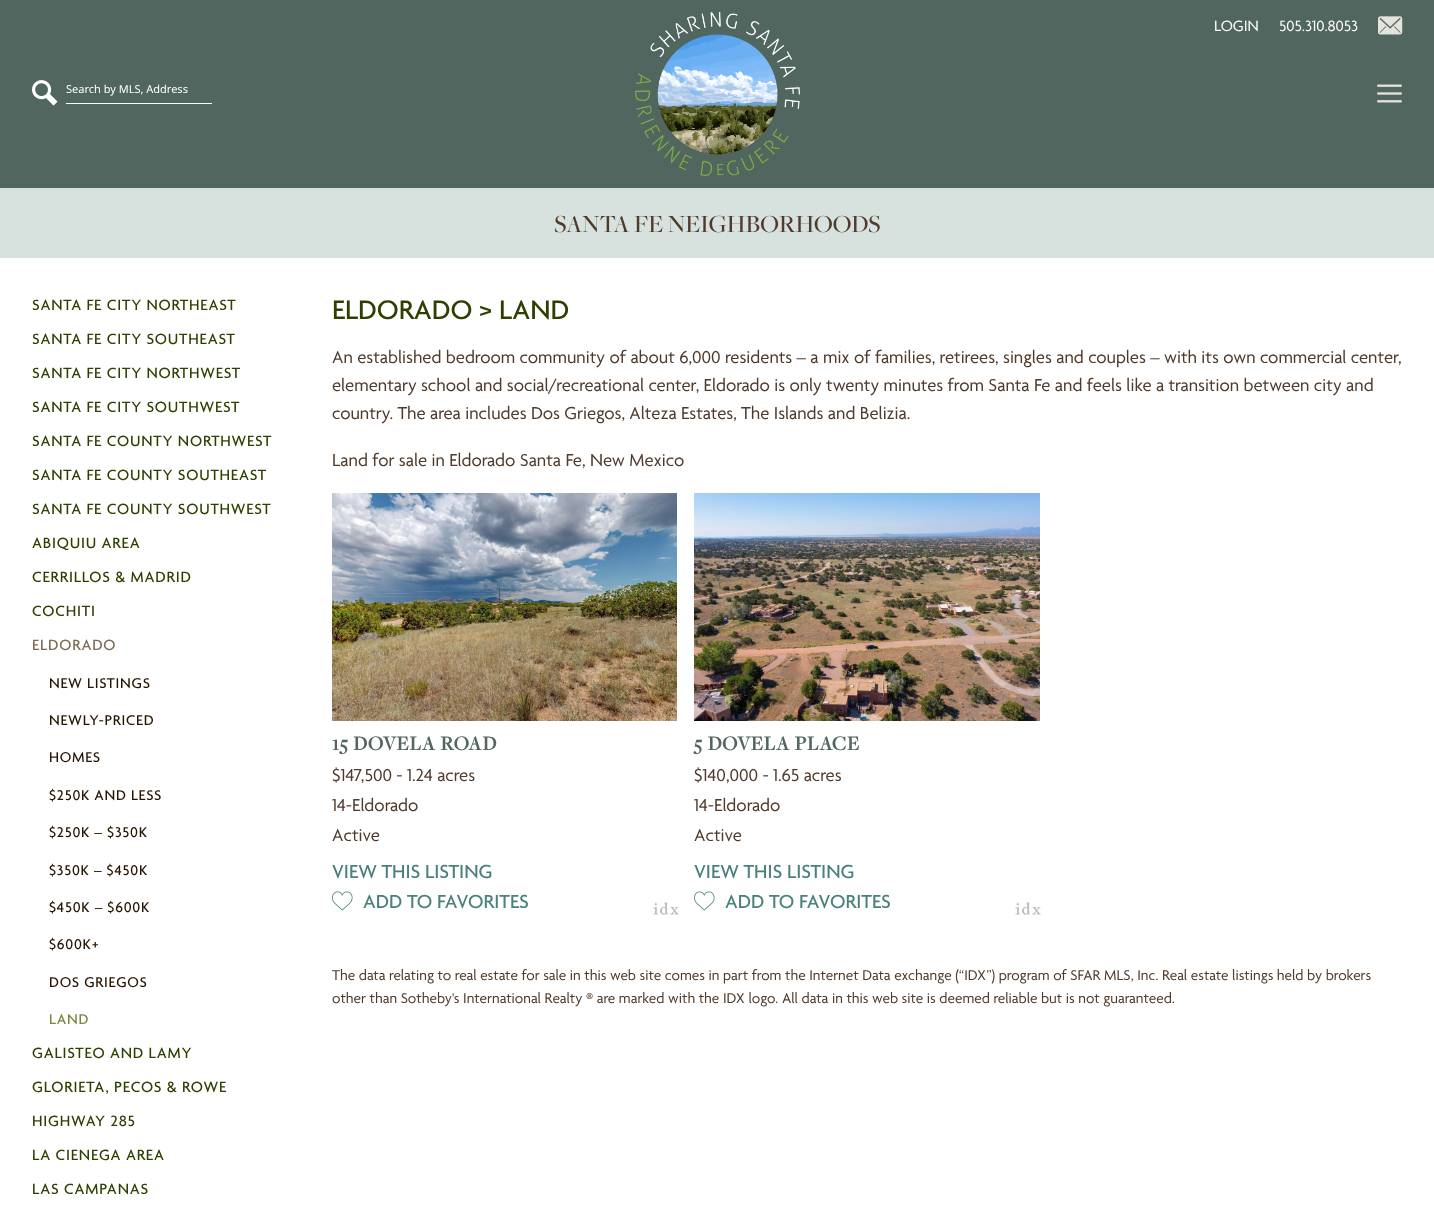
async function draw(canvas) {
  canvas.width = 1434
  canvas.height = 1213
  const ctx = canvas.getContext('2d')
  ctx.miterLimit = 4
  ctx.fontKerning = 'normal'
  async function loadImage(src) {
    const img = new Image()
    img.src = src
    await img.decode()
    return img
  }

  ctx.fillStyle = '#fff'
  ctx.fillRect(0, 0, 1434, 1213)
  ctx.fillStyle = '#50665e'
  ctx.fillRect(0, 0, 1434, 188)
  ctx.drawImage(await loadImage('image0.png'), 635, 12, 165, 164)
  ctx.font = '16.1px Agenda'
  ctx.fillStyle = '#fff'
  ctx.fillText('LOGIN', 1214, 31)
  ctx.fillText('505.310.8053', 1279, 31)
  ctx.drawImage(await loadImage('image1.png'), 1378, 16, 25, 19)
  ctx.drawImage(await loadImage('image2.png'), 32, 80, 26, 26)
  ctx.fillRect(66, 103, 146, 1)
  ctx.font = '11px Noto Sans'
  ctx.fillText('Search by MLS, Address', 66, 93)
  ctx.drawImage(await loadImage('image3.png'), 1377, 84, 25, 19)
  ctx.fillStyle = '#d7e2df'
  ctx.fillRect(0, 188, 1434, 70)
  ctx.font = '500 25.5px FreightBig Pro'
  ctx.fillStyle = '#503a2b'
  ctx.fillText('SANTA FE NEIGHBORHOODS', 554, 232)
  ctx.letterSpacing = '0.8px'
  ctx.font = '500 16.1px Agenda'
  ctx.fillStyle = '#2e4000'
  ctx.fillText('SANTA FE CITY NORTHEAST', 32, 310)
  ctx.fillText('SANTA FE CITY SOUTHEAST', 32, 344)
  ctx.fillText('SANTA FE CITY NORTHWEST', 32, 378)
  ctx.fillText('SANTA FE CITY SOUTHWEST', 32, 412)
  ctx.fillText('SANTA FE COUNTY NORTHWEST', 32, 446)
  ctx.fillText('SANTA FE COUNTY SOUTHEAST', 32, 480)
  ctx.fillText('SANTA FE COUNTY SOUTHWEST', 32, 514)
  ctx.fillText('ABIQUIU AREA', 32, 548)
  ctx.fillText('CERRILLOS & MADRID', 32, 582)
  ctx.fillText('COCHITI', 32, 616)
  ctx.fillStyle = '#7f6b54'
  ctx.fillText('ELDORADO', 32, 650)
  ctx.letterSpacing = '0.75px'
  ctx.font = '500 15.3px Agenda'
  ctx.fillStyle = '#271501'
  ctx.fillText('NEW LISTINGS', 49, 688)
  ctx.fillText('NEWLY-PRICED', 49, 725)
  ctx.fillText('HOMES', 49, 762)
  ctx.fillText('$250K AND LESS', 49, 800)
  ctx.fillText('$250K – $350K', 49, 837)
  ctx.fillText('$350K – $450K', 49, 875)
  ctx.fillText('$450K – $600K', 49, 912)
  ctx.fillText('$600K+', 49, 949)
  ctx.fillText('DOS GRIEGOS', 49, 987)
  ctx.fillStyle = '#7d8440'
  ctx.fillText('LAND', 49, 1024)
  ctx.letterSpacing = '0.8px'
  ctx.font = '500 16.1px Agenda'
  ctx.fillStyle = '#2e4000'
  ctx.fillText('GALISTEO AND LAMY', 32, 1058)
  ctx.fillText('GLORIETA, PECOS & ROWE', 32, 1092)
  ctx.fillText('HIGHWAY 285', 32, 1126)
  ctx.fillText('LA CIENEGA AREA', 32, 1160)
  ctx.fillText('LAS CAMPANAS', 32, 1194)
  ctx.letterSpacing = '0px'
  ctx.font = '500 29px Agenda'
  ctx.fillText('ELDORADO > LAND', 332, 319)
  ctx.font = '18.7px Agenda'
  ctx.fillStyle = '#503a2b'
  ctx.fillText('An established bedroom community of about 6,000 residents – a mix of families, retirees, singles and couples – with its own commercial center,', 332, 363)
  ctx.fillText('elementary school and social/recreational center, Eldorado is only twenty minutes from Santa Fe and feels like a transition between city and', 332, 391)
  ctx.fillText('country. The area includes Dos Griegos, Alteza Estates, The Islands and Belizia.', 332, 419)
  ctx.fillText('Land for sale in Eldorado Santa Fe, New Mexico', 332, 466)
  ctx.drawImage(await loadImage('image4.png'), 653, 902, 26, 13)
  ctx.drawImage(await loadImage('image5.png'), 332, 493, 345, 228)
  ctx.letterSpacing = '1px'
  ctx.font = 'bold 20.5px FreightBig Pro'
  ctx.fillStyle = '#50665e'
  ctx.fillText('15 DOVELA ROAD', 332, 750)
  ctx.letterSpacing = '0px'
  ctx.font = '18.7px Agenda'
  ctx.fillStyle = '#503a2b'
  ctx.fillText('$147,500 - 1.24 acres', 332, 781)
  ctx.fillText('14-Eldorado', 332, 811)
  ctx.fillText('Active', 332, 841)
  ctx.font = '500 20.5px Agenda'
  ctx.fillStyle = '#4a817c'
  ctx.fillText('VIEW THIS LISTING', 332, 878)
  ctx.drawImage(await loadImage('image6.png'), 332, 891, 21, 20)
  ctx.fillText('ADD TO FAVORITES', 363, 908)
  ctx.drawImage(await loadImage('image4.png'), 1015, 902, 26, 13)
  ctx.drawImage(await loadImage('image7.png'), 694, 493, 346, 228)
  ctx.letterSpacing = '1px'
  ctx.font = 'bold 20.5px FreightBig Pro'
  ctx.fillStyle = '#50665e'
  ctx.fillText('5 DOVELA PLACE', 694, 750)
  ctx.letterSpacing = '0px'
  ctx.font = '18.7px Agenda'
  ctx.fillStyle = '#503a2b'
  ctx.fillText('$140,000 - 1.65 acres', 694, 781)
  ctx.fillText('14-Eldorado', 694, 811)
  ctx.fillText('Active', 694, 841)
  ctx.font = '500 20.5px Agenda'
  ctx.fillStyle = '#4a817c'
  ctx.fillText('VIEW THIS LISTING', 694, 878)
  ctx.drawImage(await loadImage('image6.png'), 694, 891, 21, 20)
  ctx.fillText('ADD TO FAVORITES', 725, 908)
  ctx.font = '15.3px Agenda'
  ctx.fillStyle = '#503a2b'
  ctx.fillText('The data relating to real estate for sale in this web site comes in part from the Internet Data exchange (“IDX”) program of SFAR MLS, Inc. Real estate listings held by brokers', 332, 980)
  ctx.fillText('other than Sotheby\'s International Realty ® are marked with the IDX logo. All data in this web site is deemed reliable but is not guaranteed.', 332, 1003)
}

draw(document.querySelector('canvas'))
